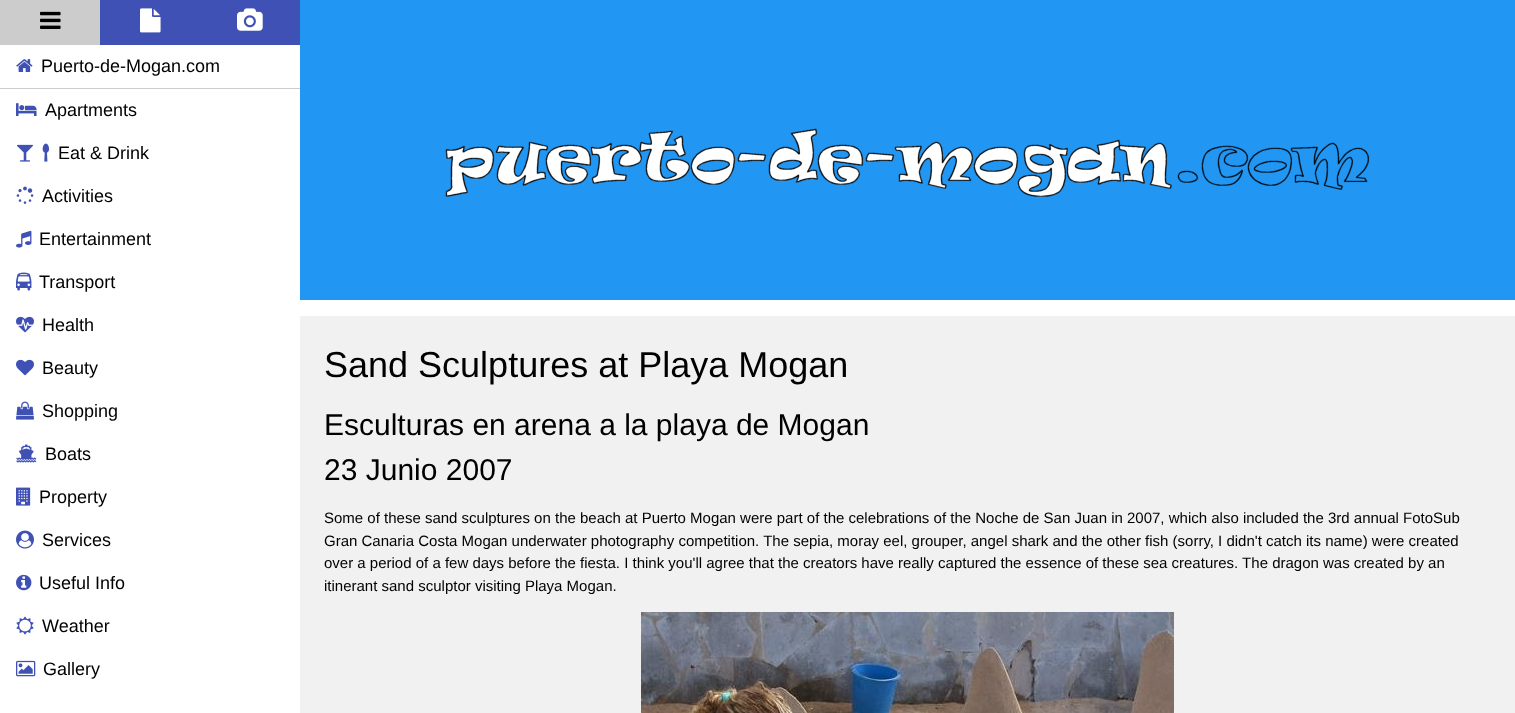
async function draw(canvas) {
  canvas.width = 1515
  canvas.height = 713
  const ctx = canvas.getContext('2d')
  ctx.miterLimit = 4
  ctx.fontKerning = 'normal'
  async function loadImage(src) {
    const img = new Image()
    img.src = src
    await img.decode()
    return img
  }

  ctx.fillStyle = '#fff'
  ctx.fillRect(0, 0, 1515, 713)
  ctx.fillStyle = '#3f51b5'
  ctx.fillRect(100, 0, 200, 45)
  ctx.fillStyle = '#ccc'
  ctx.fillRect(0, 0, 100, 45)
  ctx.drawImage(await loadImage('image0.png'), 40, 11, 21, 18)
  ctx.drawImage(await loadImage('image1.png'), 140, 8, 21, 25)
  ctx.drawImage(await loadImage('image2.png'), 237, 8, 26, 23)
  ctx.fillRect(0, 88, 300, 1)
  ctx.drawImage(await loadImage('image3.png'), 16, 59, 17, 13)
  ctx.font = '18px Liberation Sans'
  ctx.fillStyle = '#000'
  ctx.fillText('Puerto-de-Mogan.com', 41, 72)
  ctx.drawImage(await loadImage('image4.png'), 16, 103, 21, 13)
  ctx.fillText('Apartments', 45, 116)
  ctx.drawImage(await loadImage('image5.png'), 17, 144, 16, 18)
  ctx.drawImage(await loadImage('image6.png'), 42, 143, 8, 19)
  ctx.fillText('Eat & Drink', 58, 159)
  ctx.drawImage(await loadImage('image7.png'), 16, 186, 18, 18)
  ctx.fillText('Activities', 42, 202)
  ctx.drawImage(await loadImage('image8.png'), 16, 230, 16, 18)
  ctx.fillText('Entertainment', 39, 245)
  ctx.drawImage(await loadImage('image9.png'), 16, 272, 16, 19)
  ctx.fillText('Transport', 39, 288)
  ctx.drawImage(await loadImage('image10.png'), 16, 316, 18, 17)
  ctx.fillText('Health', 42, 331)
  ctx.drawImage(await loadImage('image11.png'), 16, 359, 18, 17)
  ctx.fillText('Beauty', 42, 374)
  ctx.drawImage(await loadImage('image12.png'), 16, 401, 18, 19)
  ctx.fillText('Shopping', 42, 417)
  ctx.drawImage(await loadImage('image13.png'), 16, 444, 21, 19)
  ctx.fillText('Boats', 45, 460)
  ctx.drawImage(await loadImage('image14.png'), 16, 487, 15, 19)
  ctx.fillText('Property', 39, 503)
  ctx.drawImage(await loadImage('image15.png'), 16, 530, 18, 19)
  ctx.fillText('Services', 42, 546)
  ctx.drawImage(await loadImage('image16.png'), 16, 574, 16, 17)
  ctx.fillText('Useful Info', 39, 589)
  ctx.drawImage(await loadImage('image17.png'), 16, 616, 18, 19)
  ctx.fillText('Weather', 42, 632)
  ctx.drawImage(await loadImage('image18.png'), 16, 660, 20, 17)
  ctx.fillText('Gallery', 43, 675)
  ctx.fillStyle = '#2196f3'
  ctx.fillRect(300, 0, 1215, 300)
  ctx.drawImage(await loadImage('image19.png'), 445, 128, 925, 69)
  ctx.fillStyle = '#f1f1f1'
  ctx.fillRect(300, 316, 1215, 397)
  ctx.font = '36px Liberation Sans'
  ctx.fillStyle = '#000'
  ctx.fillText('Sand Sculptures at Playa Mogan', 324, 377)
  ctx.font = '30px Liberation Sans'
  ctx.fillText('Esculturas en arena a la playa de Mogan', 324, 435)
  ctx.fillText('23 Junio 2007', 324, 480)
  ctx.font = '15px Liberation Sans'
  ctx.fillText('Some of these sand sculptures on the beach at Puerto Mogan were part of the celebrations of the Noche de San Juan in 2007, which also included the 3rd annual FotoSub', 324, 523)
  ctx.fillText('Gran Canaria Costa Mogan underwater photography competition. The sepia, moray eel, grouper, angel shark and the other fish (sorry, I didn\'t catch its name) were created', 324, 546)
  ctx.fillText('over a period of a few days before the fiesta. I think you\'ll agree that the creators have really captured the essence of these sea creatures. The dragon was created by an', 324, 568)
  ctx.fillText('itinerant sand sculptor visiting Playa Mogan.', 324, 591)
  ctx.drawImage(await loadImage('image20.png'), 641, 612, 533, 101)
}

draw(document.querySelector('canvas'))
